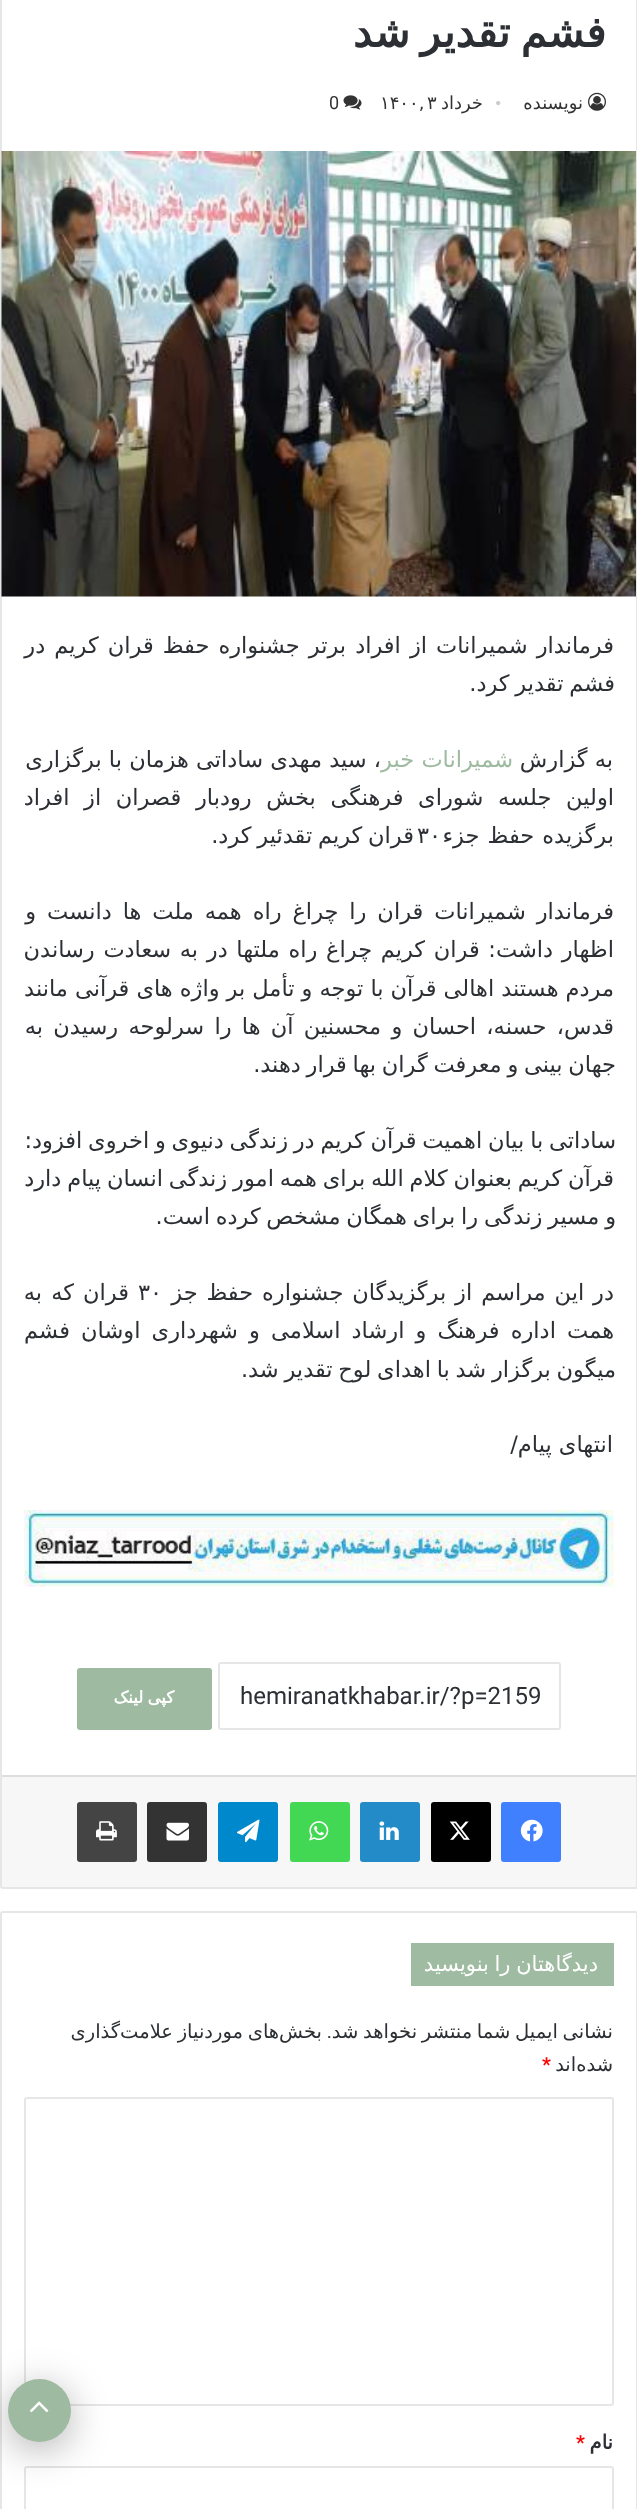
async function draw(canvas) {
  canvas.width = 637
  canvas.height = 2509
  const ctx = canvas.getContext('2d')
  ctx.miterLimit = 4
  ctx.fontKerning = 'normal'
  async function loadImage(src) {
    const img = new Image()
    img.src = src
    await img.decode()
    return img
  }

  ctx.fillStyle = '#fff'
  ctx.fillRect(0, 0, 637, 2509)
  ctx.beginPath()
  ctx.roundRect(1, -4, 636, 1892, 2)
  ctx.strokeStyle = '#e6e6e6'
  ctx.lineWidth = 2
  ctx.stroke()
  ctx.wordSpacing = '-3px'
  ctx.direction = 'rtl'
  ctx.font = 'bold 42px DejaVu Sans'
  ctx.fillStyle = '#2c2f34'
  ctx.fillText('فشم تقدیر شد', 606, 47)
  ctx.drawImage(await loadImage('image0.png'), 588, 92, 18, 19)
  ctx.wordSpacing = '0px'
  ctx.font = '18px DejaVu Sans'
  ctx.fillStyle = '#333'
  ctx.fillText('نویسنده', 583, 109)
  ctx.direction = 'ltr'
  ctx.font = '18px Liberation Serif'
  ctx.fillStyle = '#ccc'
  ctx.fillText('•', 495, 109)
  ctx.direction = 'rtl'
  ctx.font = '18px DejaVu Sans'
  ctx.fillStyle = '#333'
  ctx.fillText('خرداد', 483, 109)
  ctx.direction = 'ltr'
  ctx.fillText('۳', 427, 109)
  ctx.fillText('۱۴۰۰,', 380, 109)
  ctx.drawImage(await loadImage('image1.png'), 343, 95, 19, 15)
  ctx.font = '18px Roboto'
  ctx.fillText('0', 329, 109)
  ctx.drawImage(await loadImage('image2.png'), 1, 151, 635, 446)
  ctx.wordSpacing = '1.9px'
  ctx.direction = 'rtl'
  ctx.font = '22.5px DejaVu Sans'
  ctx.fillStyle = '#2c2f34'
  ctx.fillText('فرماندار شمیرانات از افراد برتر جشنواره حفظ قران کریم در', 614, 653)
  ctx.wordSpacing = '-1.4px'
  ctx.fillText('فشم تقدیر کرد.', 615, 691)
  ctx.wordSpacing = '0px'
  ctx.fillText('به گزارش', 613, 767)
  ctx.fillStyle = '#9ebaa0'
  ctx.fillText('شمیرانات خبر', 513, 767)
  ctx.fillStyle = '#2c2f34'
  ctx.fillText('، سید مهدی ساداتی هزمان با برگزاری', 381, 767)
  ctx.wordSpacing = '7.5px'
  ctx.fillText('اولین جلسه شورای فرهنگی بخش رودبار قصران از افراد', 614, 805)
  ctx.wordSpacing = '1px'
  ctx.fillText('برگزیده حفظ جزء', 614, 843)
  ctx.wordSpacing = '0px'
  ctx.direction = 'ltr'
  ctx.fillText('۳۰', 417, 843)
  ctx.wordSpacing = '-1.4px'
  ctx.direction = 'rtl'
  ctx.fillText('قران کریم تقدئیر کرد.', 414, 843)
  ctx.wordSpacing = '3.75px'
  ctx.fillText('فرماندار شمیرانات قران را چراغ راه همه ملت ها دانست و', 614, 919)
  ctx.wordSpacing = '1.5px'
  ctx.fillText('اظهار داشت: قران کریم چراغ راه ملتها در به سعادت رساندن', 614, 957)
  ctx.wordSpacing = '-0.1px'
  ctx.fillText('مردم هستند اهالی قرآن با توجه و تأمل بر واژه های قرآنی مانند', 614, 996)
  ctx.wordSpacing = '3.1px'
  ctx.fillText('قدس، حسنه، احسان و محسنین آن ها را سرلوحه رسیدن به', 614, 1034)
  ctx.wordSpacing = '-1.4px'
  ctx.fillText('جهان بینی و معرفت گران بها قرار دهند.', 616, 1072)
  ctx.fillText('ساداتی با بیان اهمیت قرآن کریم در زندگی دنیوی و اخروی افزود:', 616, 1148)
  ctx.wordSpacing = '-1.25px'
  ctx.fillText('قرآن کریم بعنوان کلام الله براى همه امور زندگى انسان پيام دارد', 614, 1186)
  ctx.wordSpacing = '-1.4px'
  ctx.fillText('و مسیر زندگی را برای همگان مشخص کرده است.', 616, 1224)
  ctx.wordSpacing = '1.75px'
  ctx.fillText('در این مراسم از برگزیدگان جشنواره حفظ جز', 614, 1300)
  ctx.wordSpacing = '0px'
  ctx.direction = 'ltr'
  ctx.fillText('۳۰', 138, 1300)
  ctx.wordSpacing = '2px'
  ctx.direction = 'rtl'
  ctx.fillText('قران که به', 129, 1300)
  ctx.wordSpacing = '4px'
  ctx.fillText('همت اداره فرهنگ و ارشاد اسلامی و شهرداری اوشان فشم', 614, 1338)
  ctx.wordSpacing = '-1.4px'
  ctx.fillText('میگون برگزار شد با اهدای لوح تقدیر شد.', 616, 1377)
  ctx.wordSpacing = '0px'
  ctx.fillText('انتهای پیام/', 613, 1452)
  ctx.drawImage(await loadImage('image3.png'), 24, 1510, 590, 77)
  ctx.beginPath()
  ctx.roundRect(219, 1663, 341, 66, 2)
  ctx.stroke()
  ctx.direction = 'ltr'
  ctx.font = '24px Roboto'
  ctx.fillText('hemiranatkhabar.ir/?p=2159', 240, 1704)
  ctx.fillStyle = '#9ebaa0'
  ctx.beginPath()
  ctx.roundRect(77, 1668, 135, 62, 3)
  ctx.fill()
  ctx.wordSpacing = '-1px'
  ctx.direction = 'rtl'
  ctx.font = 'bold 16.5px DejaVu Sans'
  ctx.fillStyle = '#fff'
  ctx.fillText('کپی لینک', 174, 1703)
  ctx.fillStyle = '#f7f7f7'
  ctx.fillRect(2, 1777, 634, 110)
  ctx.fillStyle = '#dedede'
  ctx.fillRect(2, 1775, 634, 2)
  ctx.fillStyle = '#4080ff'
  ctx.beginPath()
  ctx.roundRect(501, 1802, 60, 60, 3)
  ctx.fill()
  ctx.drawImage(await loadImage('image4.png'), 520, 1819, 23, 23)
  ctx.fillStyle = '#000'
  ctx.beginPath()
  ctx.roundRect(431, 1802, 60, 60, 3)
  ctx.fill()
  ctx.drawImage(await loadImage('image5.png'), 449, 1821, 21, 19)
  ctx.fillStyle = '#238cc8'
  ctx.beginPath()
  ctx.roundRect(360, 1802, 60, 60, 3)
  ctx.fill()
  ctx.drawImage(await loadImage('image6.png'), 379, 1821, 20, 19)
  ctx.fillStyle = '#43d854'
  ctx.beginPath()
  ctx.roundRect(290, 1802, 60, 60, 3)
  ctx.fill()
  ctx.drawImage(await loadImage('image7.png'), 309, 1821, 20, 20)
  ctx.fillStyle = '#08c'
  ctx.beginPath()
  ctx.roundRect(218, 1802, 60, 60, 3)
  ctx.fill()
  ctx.drawImage(await loadImage('image8.png'), 237, 1819, 23, 24)
  ctx.fillStyle = '#333'
  ctx.beginPath()
  ctx.roundRect(147, 1802, 60, 60, 3)
  ctx.fill()
  ctx.drawImage(await loadImage('image9.png'), 166, 1822, 23, 19)
  ctx.fillStyle = '#444'
  ctx.beginPath()
  ctx.roundRect(77, 1802, 60, 60, 3)
  ctx.fill()
  ctx.drawImage(await loadImage('image10.png'), 96, 1821, 21, 20)
  ctx.beginPath()
  ctx.roundRect(1, 1912, 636, 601, 2)
  ctx.stroke()
  ctx.fillStyle = '#9fbba1'
  ctx.fillRect(411, 1943, 203, 43)
  ctx.font = '21px DejaVu Sans'
  ctx.fillStyle = '#fff'
  ctx.fillText('دیدگاهتان را بنویسید', 598, 1971)
  ctx.wordSpacing = '-1.5px'
  ctx.font = '19.5px DejaVu Sans'
  ctx.fillStyle = '#2c2f34'
  ctx.fillText('نشانی ایمیل شما منتشر نخواهد شد', 613, 2038)
  ctx.wordSpacing = '0px'
  ctx.font = '19.5px Roboto'
  ctx.fillText('.', 332, 2038)
  ctx.wordSpacing = '-1.5px'
  ctx.font = '19.5px DejaVu Sans'
  ctx.fillText('بخش‌های موردنیاز علامت‌گذاری', 322, 2038)
  ctx.wordSpacing = '0px'
  ctx.fillText('شده‌اند', 613, 2071)
  ctx.direction = 'ltr'
  ctx.font = 'bold 19.5px Roboto'
  ctx.fillStyle = '#f00'
  ctx.fillText('*', 542, 2071)
  ctx.beginPath()
  ctx.roundRect(25, 2098, 588, 307, 2)
  ctx.stroke()
  ctx.direction = 'rtl'
  ctx.font = 'bold 19.5px DejaVu Sans'
  ctx.fillStyle = '#2c2f34'
  ctx.fillText('نام', 613, 2449)
  ctx.direction = 'ltr'
  ctx.font = 'bold 19.5px Roboto'
  ctx.fillStyle = '#f00'
  ctx.fillText('*', 576, 2449)
  ctx.beginPath()
  ctx.roundRect(25, 2467, 588, 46, 2)
  ctx.stroke()
  ctx.fillStyle = '#0000004d'
  ctx.filter = 'blur(19px)'
  ctx.beginPath()
  ctx.roundRect(8, 2387, 63, 63, 31.5)
  ctx.fill()
  ctx.filter = 'none'
  ctx.fillStyle = '#9ebaa0'
  ctx.beginPath()
  ctx.arc(39.5, 2410.5, 31.5, 0, 2 * Math.PI)
  ctx.fill()
  ctx.drawImage(await loadImage('image11.png'), 30, 2401, 19, 12)
}

draw(document.querySelector('canvas'))
